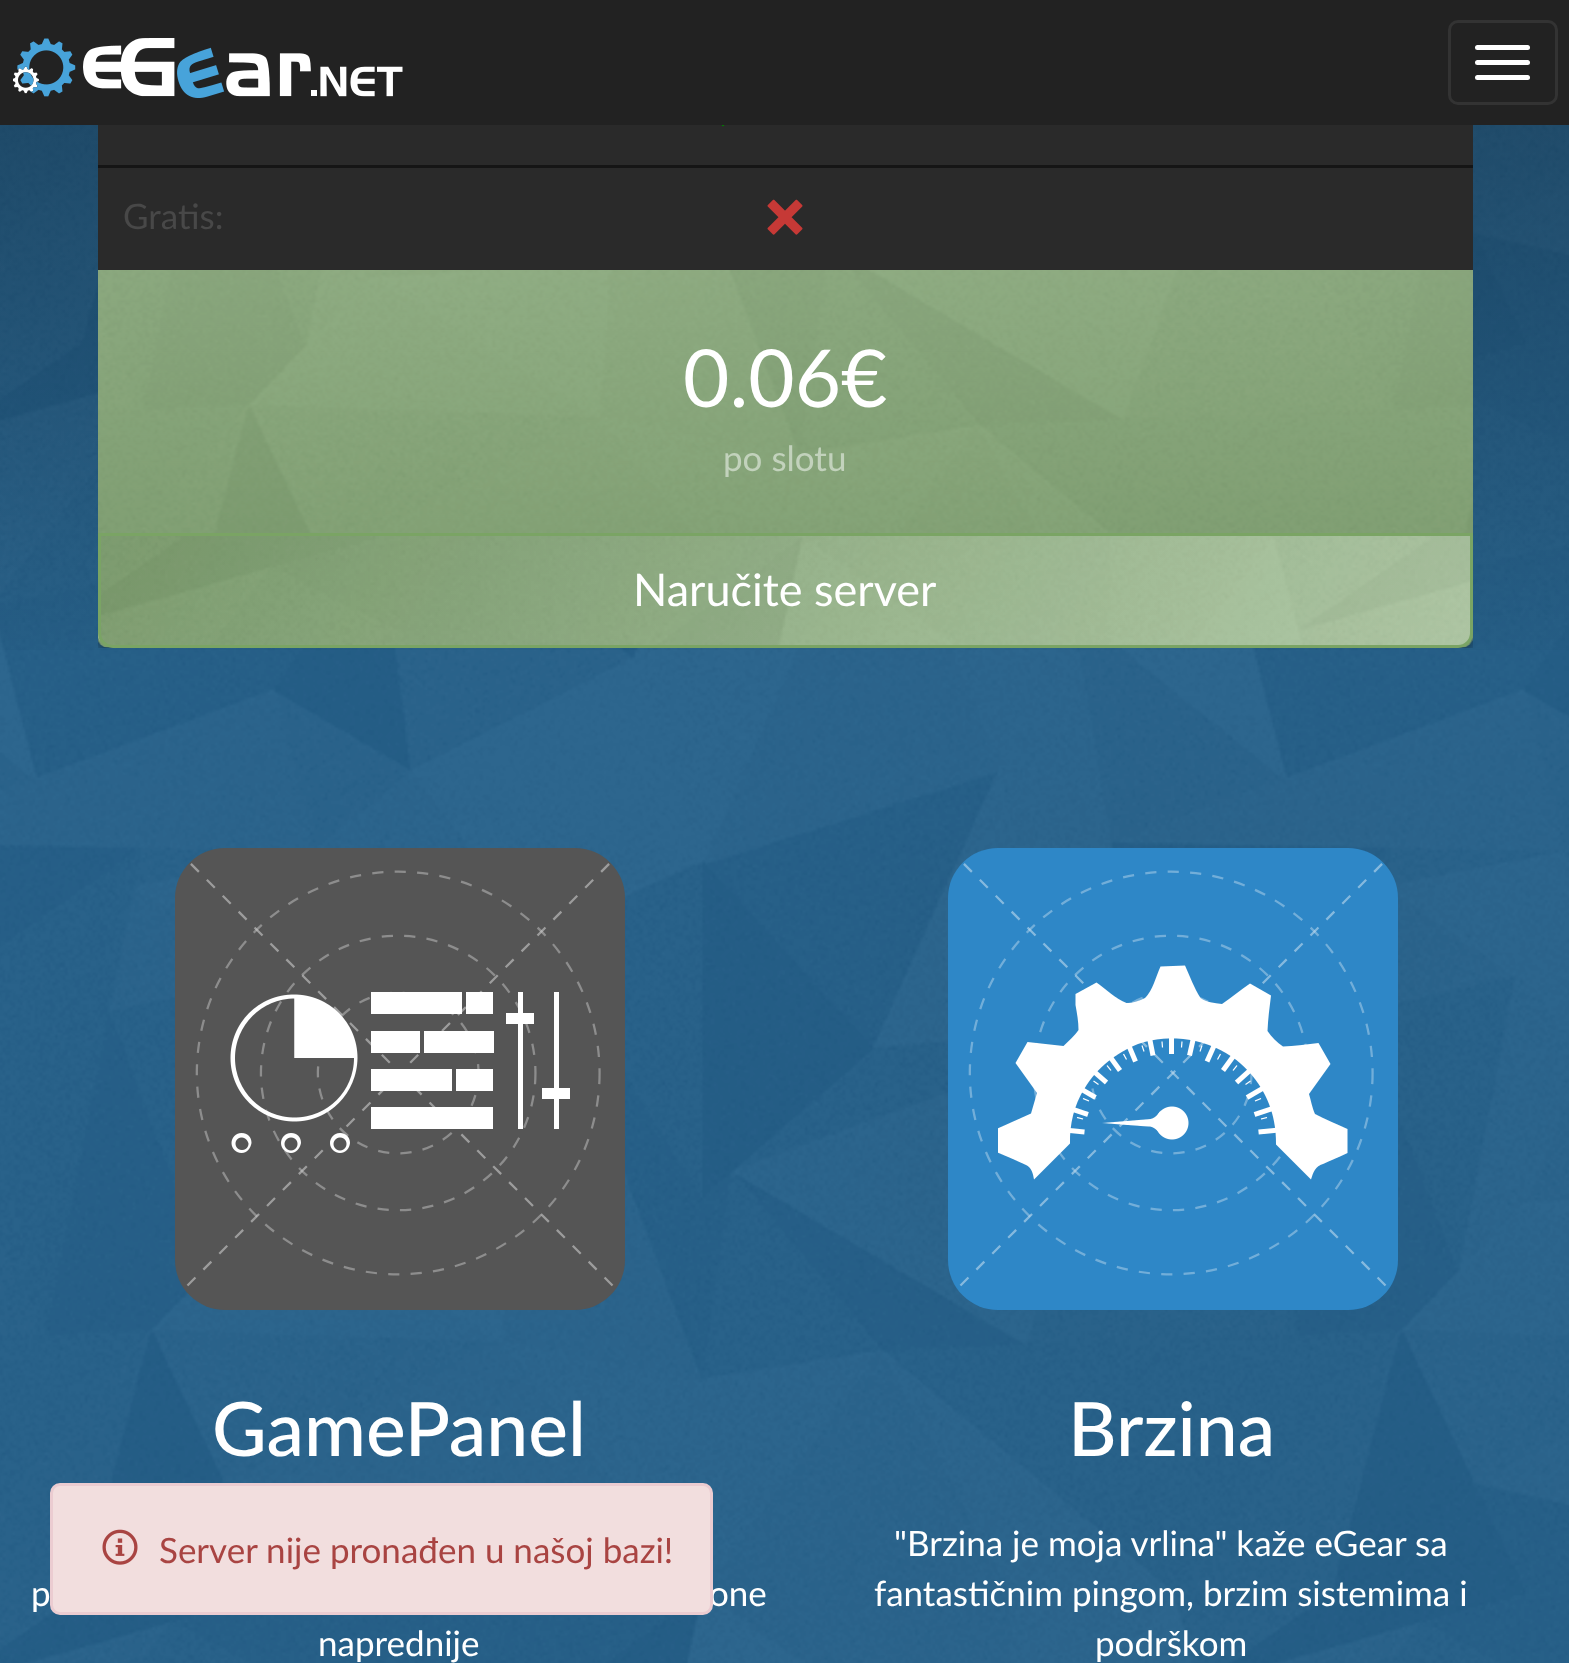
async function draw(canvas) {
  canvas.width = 1569
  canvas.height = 1663
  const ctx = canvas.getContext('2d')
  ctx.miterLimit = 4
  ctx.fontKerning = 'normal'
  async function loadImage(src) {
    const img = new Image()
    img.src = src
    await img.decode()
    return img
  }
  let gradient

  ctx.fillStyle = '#205d89'
  ctx.fillRect(0, 0, 1569, 1663)
  ctx.drawImage(await loadImage('image0.png'), 0, 125, 1569, 1538)
  gradient = ctx.createLinearGradient(785, -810, 785, 698)
  gradient.addColorStop(0, '#091620cc')
  gradient.addColorStop(1, '#09162000')
  ctx.fillStyle = gradient
  ctx.fillRect(0, 125, 1569, 525)
  ctx.save()
  ctx.beginPath()
  ctx.rect(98, 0, 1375, 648)
  ctx.clip()
  ctx.fillStyle = '#00000066'
  ctx.filter = 'blur(5px)'
  ctx.beginPath()
  ctx.roundRect(98, -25, 1375, 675, 10)
  ctx.fill()
  ctx.filter = 'none'
  ctx.restore()
  ctx.fillStyle = '#2a2a2a'
  ctx.fillRect(98, 125, 1375, 145)
  ctx.fillStyle = '#008000'
  ctx.beginPath()
  ctx.moveTo(739.5, 99)
  ctx.lineTo(723, 115.5)
  ctx.lineTo(715.5, 108)
  ctx.lineTo(710, 113.5)
  ctx.lineTo(723, 126.5)
  ctx.lineTo(745, 104.5)
  ctx.closePath()
  ctx.fill()
  ctx.fillStyle = '#222'
  ctx.fillRect(0, 0, 1569, 125)
  ctx.drawImage(await loadImage('image1.png'), 13, 38, 390, 60)
  ctx.beginPath()
  ctx.roundRect(1449.5, 21.5, 107, 82, 8.5)
  ctx.strokeStyle = '#333'
  ctx.lineWidth = 3
  ctx.stroke()
  ctx.fillStyle = '#fff'
  ctx.beginPath()
  ctx.roundRect(1475, 45, 55, 5, 2.5)
  ctx.fill()
  ctx.beginPath()
  ctx.roundRect(1475, 60, 55, 5, 2.5)
  ctx.fill()
  ctx.beginPath()
  ctx.roundRect(1475, 75, 55, 5, 2.5)
  ctx.fill()
  ctx.drawImage(await loadImage('image2.png'), 98, 270, 1375, 378)
  ctx.fillStyle = '#151515'
  ctx.fillRect(98, 165, 1375, 3)
  ctx.font = '35px Lato'
  ctx.fillStyle = '#484848'
  ctx.fillText('Gratis:', 123, 229)
  ctx.drawImage(await loadImage('image3.png'), 767, 199, 36, 36)
  ctx.font = '80px Lato'
  ctx.fillStyle = '#fff'
  ctx.fillText('0.06€', 683, 407)
  ctx.font = '35px Lato'
  ctx.fillStyle = '#c2d2bc'
  ctx.fillText('po slotu', 723, 471)
  ctx.drawImage(await loadImage('image4.png'), 98, 536, 1374, 112)
  ctx.beginPath()
  ctx.roundRect(99.5, 534.5, 1372, 112, [0, 0, 13.5, 13.5])
  ctx.strokeStyle = '#7aa464'
  ctx.stroke()
  ctx.font = '45px Lato'
  ctx.fillStyle = '#fff'
  ctx.fillText('Naručite server', 633, 606)
  ctx.fillStyle = '#555'
  ctx.beginPath()
  ctx.roundRect(175, 848, 450, 462, 50)
  ctx.fill()
  ctx.drawImage(await loadImage('image5.png'), 186, 863, 428, 424)
  ctx.drawImage(await loadImage('image6.png'), 230, 992, 340, 161)
  ctx.font = '500 75px Lato'
  ctx.fillStyle = '#fff'
  ctx.fillText('GamePanel', 212, 1456)
  ctx.font = '35px Lato'
  ctx.fillText('p', 31, 1606)
  ctx.fillText('one', 709, 1606)
  ctx.fillText('naprednije', 318, 1656)
  ctx.fillStyle = '#2e87c7'
  ctx.beginPath()
  ctx.roundRect(948, 848, 450, 462, 50)
  ctx.fill()
  ctx.drawImage(await loadImage('image7.png'), 959, 863, 428, 424)
  ctx.drawImage(await loadImage('image8.png'), 998, 965, 350, 215)
  ctx.font = '500 75px Lato'
  ctx.fillStyle = '#fff'
  ctx.fillText('Brzina', 1068, 1456)
  ctx.font = '35px Lato'
  ctx.fillText('"Brzina je moja vrlina" kaže eGear sa', 894, 1556)
  ctx.fillText('fantastičnim pingom, brzim sistemima i', 874, 1606)
  ctx.fillText('podrškom', 1095, 1656)
  ctx.fillStyle = '#f2dede'
  ctx.beginPath()
  ctx.roundRect(51.5, 1484.5, 660, 129, 8.5)
  ctx.fill()
  ctx.strokeStyle = '#ebccd1'
  ctx.stroke()
  ctx.drawImage(await loadImage('image9.png'), 102, 1529, 36, 36)
  ctx.fillStyle = '#a94442'
  ctx.fillText('Server nije pronađen u našoj bazi!', 159, 1563)
}

draw(document.querySelector('canvas'))
